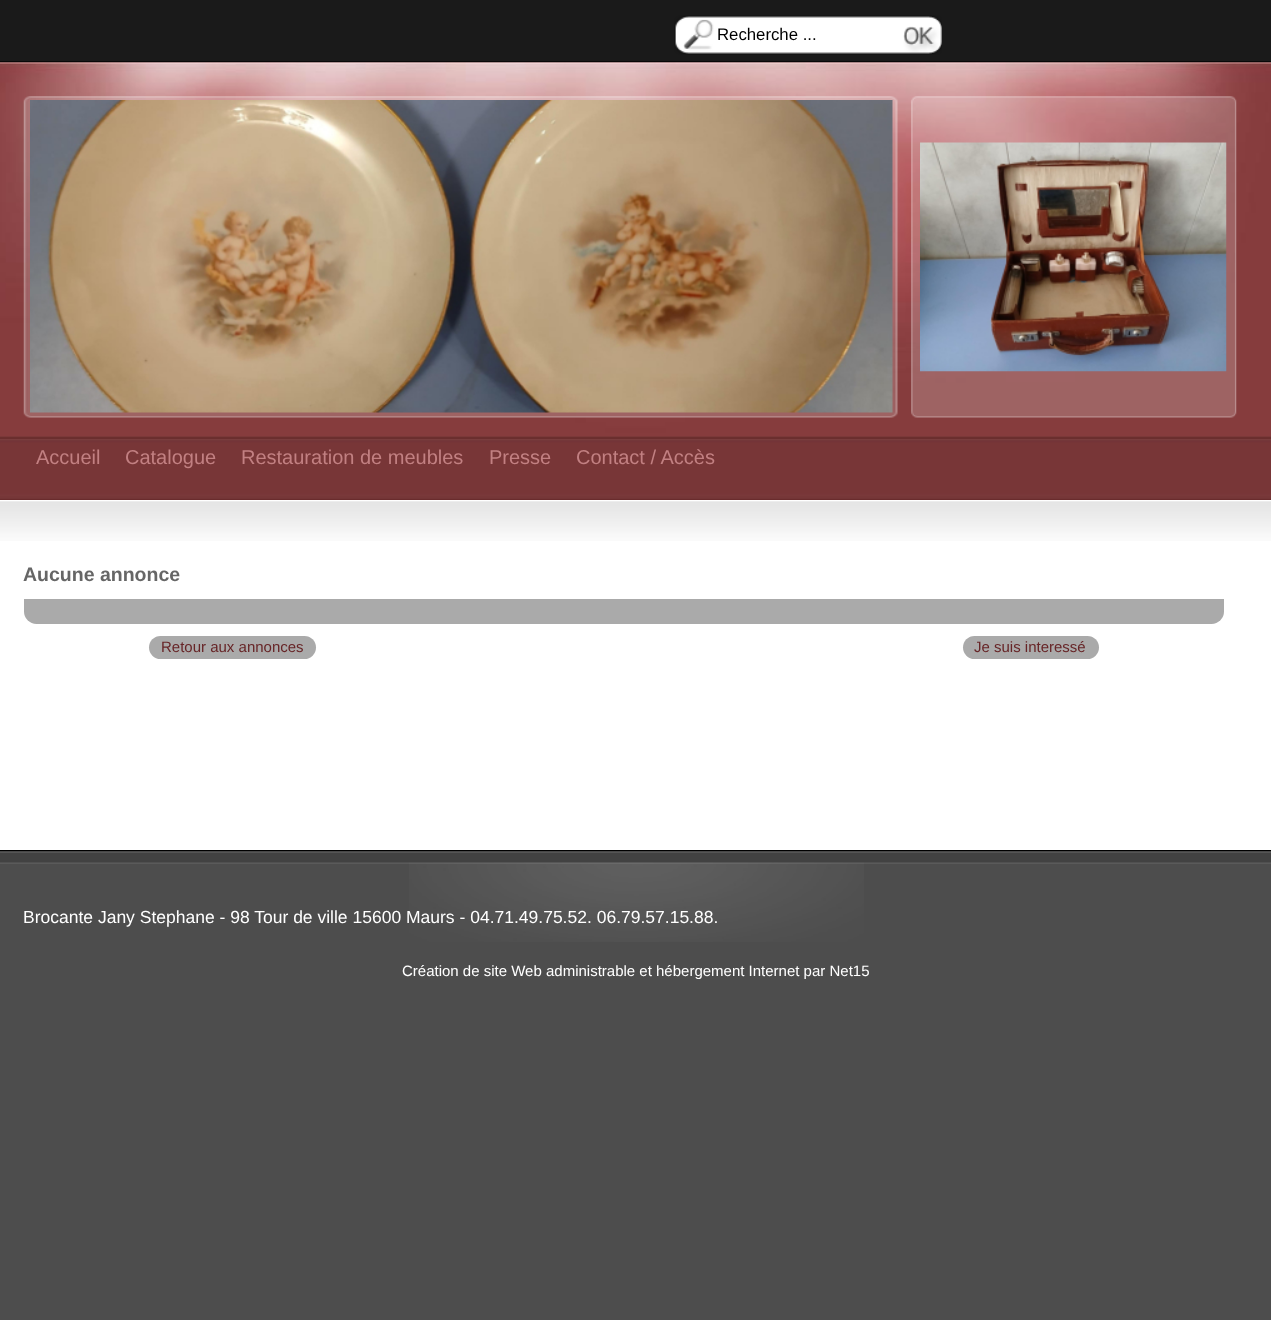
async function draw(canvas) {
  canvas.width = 1271
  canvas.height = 1320
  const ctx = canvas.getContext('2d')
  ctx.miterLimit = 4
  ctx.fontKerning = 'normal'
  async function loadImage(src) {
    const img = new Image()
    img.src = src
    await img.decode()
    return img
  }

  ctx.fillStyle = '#4d4d4d'
  ctx.fillRect(0, 0, 1271, 1320)
  ctx.drawImage(await loadImage('image0.png'), 0, 0, 1271, 63)
  ctx.drawImage(await loadImage('image1.png'), 674, 15, 268, 40)
  ctx.font = '16.75px Liberation Sans'
  ctx.fillStyle = '#000'
  ctx.fillText('Recherche ...', 717, 40)
  ctx.drawImage(await loadImage('image2.png'), 0, 62, 1271, 438)
  ctx.drawImage(await loadImage('image3.png'), 0, 62, 1271, 375)
  ctx.drawImage(await loadImage('image4.png'), 23, 96, 875, 322)
  ctx.drawImage(await loadImage('image5.png'), 30, 100, 863, 313)
  ctx.drawImage(await loadImage('image6.png'), 911, 96, 326, 322)
  ctx.drawImage(await loadImage('image7.png'), 920, 142, 307, 230)
  ctx.font = '20px Liberation Sans'
  ctx.fillStyle = '#c28082'
  ctx.fillText('Accueil', 36, 464)
  ctx.fillText('Catalogue', 125, 464)
  ctx.fillText('Restauration de meubles', 241, 464)
  ctx.fillText('Presse', 489, 464)
  ctx.fillText('Contact / Accès', 576, 464)
  ctx.fillStyle = '#fff'
  ctx.fillRect(0, 500, 1271, 350)
  ctx.drawImage(await loadImage('image8.png'), 0, 501, 1271, 40)
  ctx.font = 'bold 19.5px Liberation Sans'
  ctx.fillStyle = '#666'
  ctx.fillText('Aucune annonce', 23, 581)
  ctx.fillStyle = '#aaa'
  ctx.beginPath()
  ctx.roundRect(24, 599, 1200, 25, [0, 0, 12.5, 12.5])
  ctx.fill()
  ctx.beginPath()
  ctx.roundRect(149, 636, 167, 23, 11.5)
  ctx.fill()
  ctx.font = '15px Liberation Sans'
  ctx.fillStyle = '#672527'
  ctx.fillText('Retour aux annonces', 161, 652)
  ctx.fillStyle = '#aaa'
  ctx.beginPath()
  ctx.roundRect(963, 636, 136, 23, 11.5)
  ctx.fill()
  ctx.fillStyle = '#672527'
  ctx.fillText('Je suis interessé', 974, 652)
  ctx.drawImage(await loadImage('image9.png'), 0, 850, 1271, 14)
  ctx.drawImage(await loadImage('image10.png'), 409, 862, 455, 80)
  ctx.font = '17.5px Liberation Sans'
  ctx.fillStyle = '#fff'
  ctx.fillText('Brocante Jany Stephane - 98 Tour de ville 15600 Maurs - 04.71.49.75.52. 06.79.57.15.88.', 23, 923)
  ctx.font = '15px Liberation Sans'
  ctx.fillText('Création de site Web administrable et hébergement Internet par Net15', 402, 976)
}

draw(document.querySelector('canvas'))
